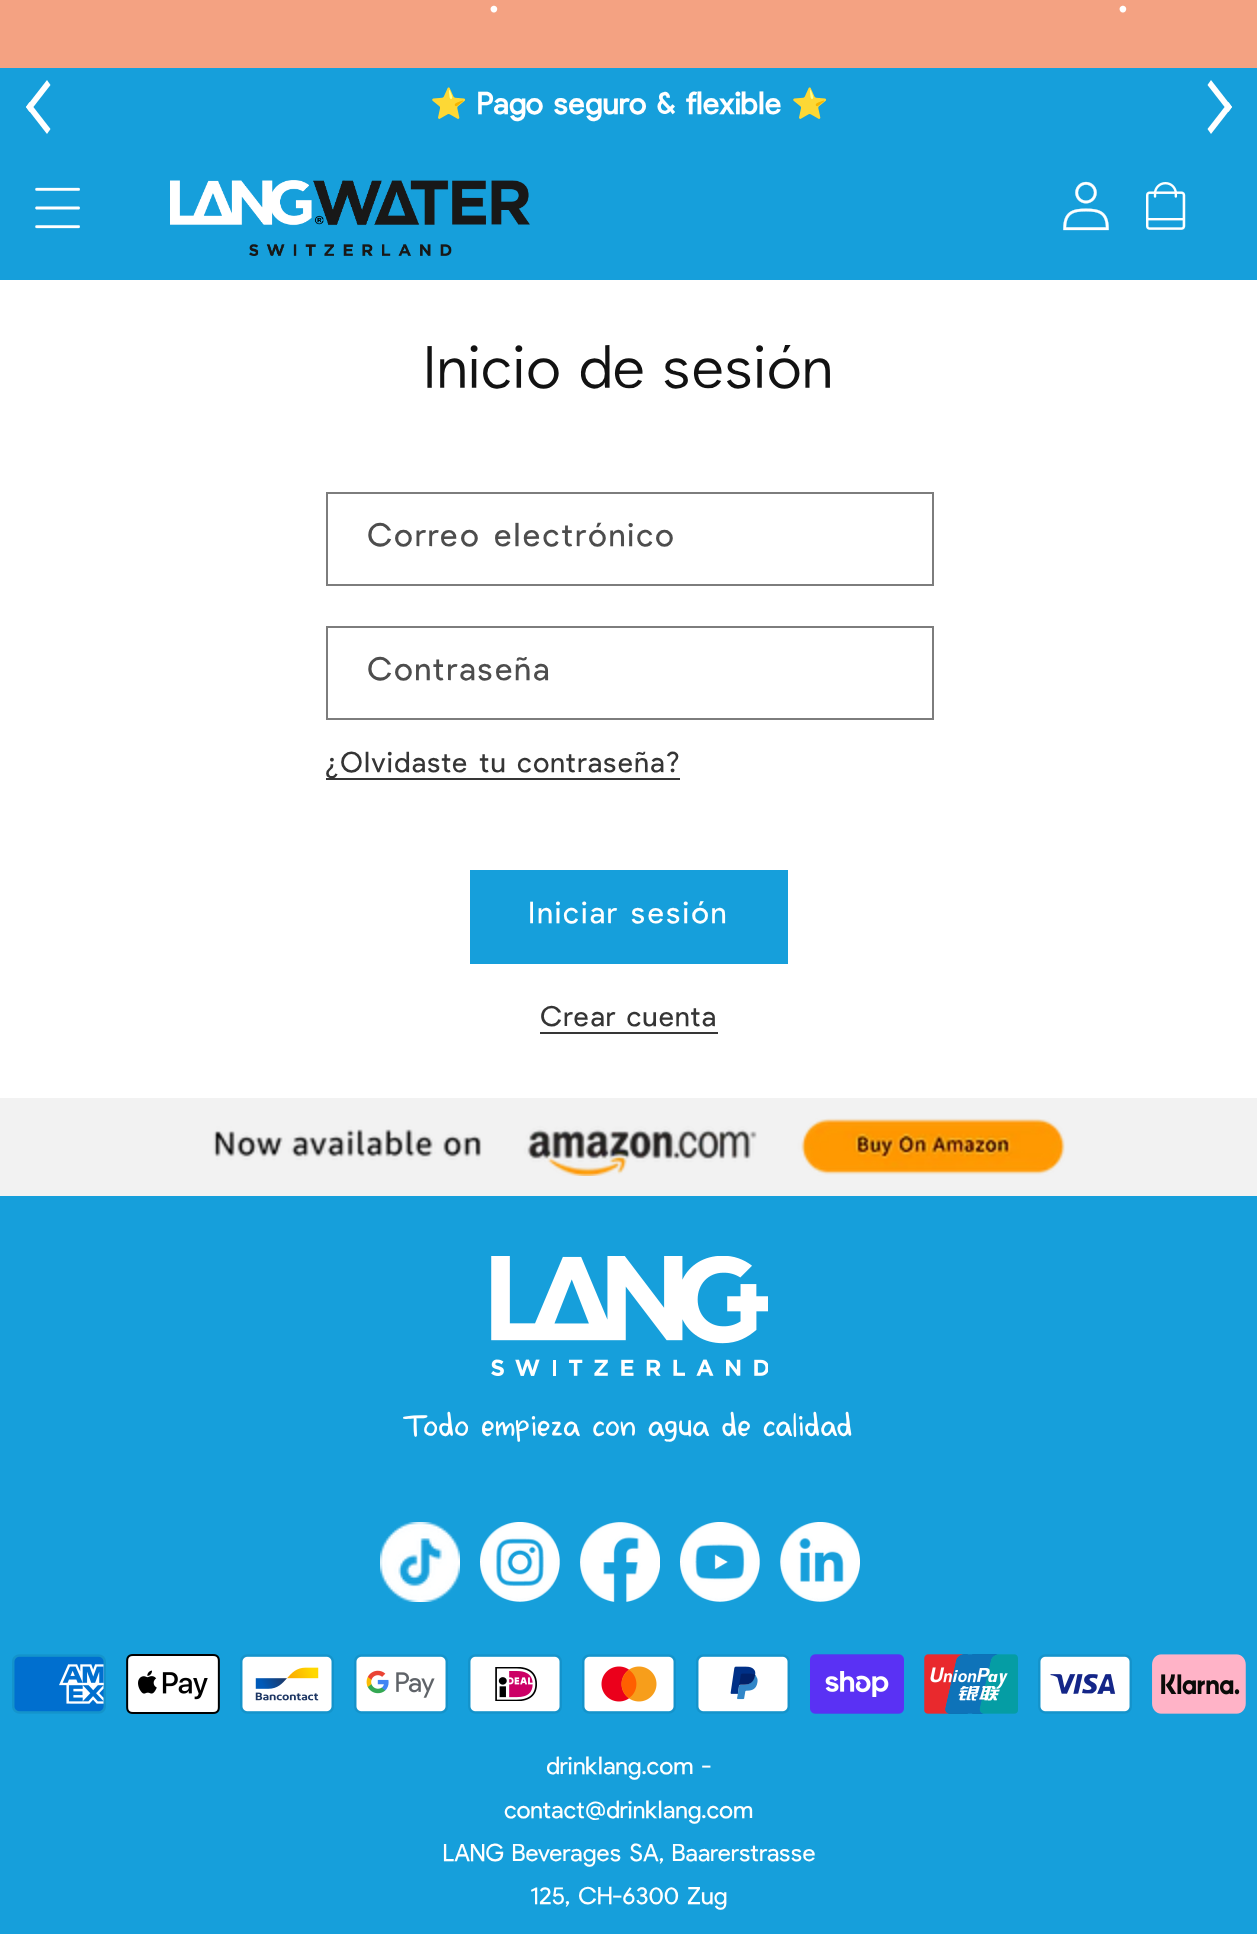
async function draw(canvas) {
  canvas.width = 1257
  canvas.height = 1934
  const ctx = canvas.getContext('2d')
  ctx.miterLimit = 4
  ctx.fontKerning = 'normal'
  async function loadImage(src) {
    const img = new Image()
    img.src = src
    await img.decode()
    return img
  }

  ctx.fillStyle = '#fff'
  ctx.fillRect(0, 0, 1257, 1934)
  ctx.fillStyle = '#f4a282'
  ctx.fillRect(0, 0, 1257, 68)
  ctx.letterSpacing = '1.2px'
  ctx.font = 'bold 40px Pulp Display'
  ctx.fillStyle = '#fff'
  ctx.fillText('.', 489, 12)
  ctx.fillText('.', 1118, 12)
  ctx.fillStyle = '#169fdb'
  ctx.fillRect(0, 68, 1257, 212)
  ctx.fillStyle = '#fff'
  ctx.beginPath()
  ctx.moveTo(26, 107)
  ctx.lineTo(47, 80)
  ctx.lineTo(50.5, 85)
  ctx.lineTo(29.5, 112)
  ctx.closePath()
  ctx.fill()
  ctx.beginPath()
  ctx.moveTo(26, 107)
  ctx.lineTo(29.5, 102)
  ctx.lineTo(50.5, 129)
  ctx.lineTo(47, 134)
  ctx.closePath()
  ctx.fill()
  ctx.letterSpacing = '0px'
  ctx.font = '30px Noto Color Emoji'
  ctx.fillText('⭐', 430, 114)
  ctx.font = 'bold 30px Pulp Display'
  ctx.fillText('Pago seguro & flexible', 477, 114)
  ctx.font = '30px Noto Color Emoji'
  ctx.fillText('⭐', 791, 114)
  ctx.beginPath()
  ctx.moveTo(1232, 107)
  ctx.lineTo(1211, 134)
  ctx.lineTo(1207.5, 129)
  ctx.lineTo(1228.5, 102)
  ctx.closePath()
  ctx.fill()
  ctx.beginPath()
  ctx.moveTo(1232, 107)
  ctx.lineTo(1228.5, 112)
  ctx.lineTo(1207.5, 85)
  ctx.lineTo(1211, 80)
  ctx.closePath()
  ctx.fill()
  ctx.drawImage(await loadImage('image0.png'), 170, 180, 360, 76)
  ctx.drawImage(await loadImage('image1.png'), 35, 187, 45, 42)
  ctx.drawImage(await loadImage('image2.png'), 1063, 181, 46, 50)
  ctx.drawImage(await loadImage('image3.png'), 1146, 182, 40, 48)
  ctx.letterSpacing = '1.2px'
  ctx.font = '200 60px Pulp Display'
  ctx.fillStyle = '#121212'
  ctx.fillText('Inicio de sesión', 425, 388)
  ctx.strokeStyle = '#7d7d7d'
  ctx.lineWidth = 2
  ctx.strokeRect(327, 493, 606, 92)
  ctx.letterSpacing = '2px'
  ctx.font = '300 32px Pulp Display'
  ctx.fillStyle = '#4d4d4d'
  ctx.fillText('Correo electrónico', 367, 546)
  ctx.strokeRect(327, 627, 606, 92)
  ctx.fillText('Contraseña', 367, 680)
  ctx.fillStyle = '#363636'
  ctx.fillRect(326, 778, 354, 2)
  ctx.letterSpacing = '1.2px'
  ctx.font = '300 28px Pulp Display'
  ctx.fillStyle = '#353535'
  ctx.fillText('¿Olvidaste tu contraseña?', 325, 772)
  ctx.fillStyle = '#169fdb'
  ctx.fillRect(470, 870, 318, 94)
  ctx.letterSpacing = '2px'
  ctx.font = '300 30px Pulp Display'
  ctx.fillStyle = '#fff'
  ctx.fillText('Iniciar sesión', 529, 923)
  ctx.letterSpacing = '1.2px'
  ctx.font = '300 28px Pulp Display'
  ctx.fillStyle = '#353535'
  ctx.fillText('Crear cuenta', 540, 1026)
  ctx.fillStyle = '#363636'
  ctx.fillRect(540, 1032, 178, 2)
  ctx.fillStyle = '#f2f2f2'
  ctx.fillRect(0, 1098, 1257, 98)
  ctx.drawImage(await loadImage('image4.png'), 213, 1118, 852, 58)
  ctx.fillStyle = '#169fdb'
  ctx.fillRect(0, 1196, 1257, 738)
  ctx.drawImage(await loadImage('image5.png'), 491, 1256, 277, 120)
  ctx.font = '30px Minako'
  ctx.fillStyle = '#fff'
  ctx.fillText('Todo empieza con agua de calidad', 405, 1436)
  ctx.drawImage(await loadImage('image6.png'), 380, 1522, 80, 80)
  ctx.drawImage(await loadImage('image7.png'), 480, 1522, 80, 80)
  ctx.drawImage(await loadImage('image8.png'), 580, 1522, 80, 80)
  ctx.drawImage(await loadImage('image9.png'), 680, 1522, 80, 80)
  ctx.drawImage(await loadImage('image10.png'), 780, 1522, 80, 80)
  ctx.drawImage(await loadImage('image11.png'), 12, 1654, 94, 60)
  ctx.drawImage(await loadImage('image12.png'), 126, 1654, 94, 60)
  ctx.drawImage(await loadImage('image13.png'), 240, 1654, 94, 60)
  ctx.drawImage(await loadImage('image14.png'), 354, 1654, 94, 60)
  ctx.drawImage(await loadImage('image15.png'), 468, 1654, 94, 60)
  ctx.drawImage(await loadImage('image16.png'), 582, 1654, 94, 60)
  ctx.drawImage(await loadImage('image17.png'), 696, 1654, 94, 60)
  ctx.drawImage(await loadImage('image18.png'), 810, 1654, 94, 60)
  ctx.drawImage(await loadImage('image19.png'), 924, 1654, 94, 60)
  ctx.drawImage(await loadImage('image20.png'), 1038, 1654, 94, 60)
  ctx.drawImage(await loadImage('image21.png'), 1152, 1654, 94, 60)
  ctx.letterSpacing = '0px'
  ctx.font = '300 24px Pulp Display'
  ctx.fillText('drinklang.com -', 546, 1774)
  ctx.fillText('contact@drinklang.com', 504, 1818)
  ctx.fillText('LANG Beverages SA, Baarerstrasse', 443, 1861)
  ctx.fillText('125, CH-6300 Zug', 530, 1904)
}

draw(document.querySelector('canvas'))
